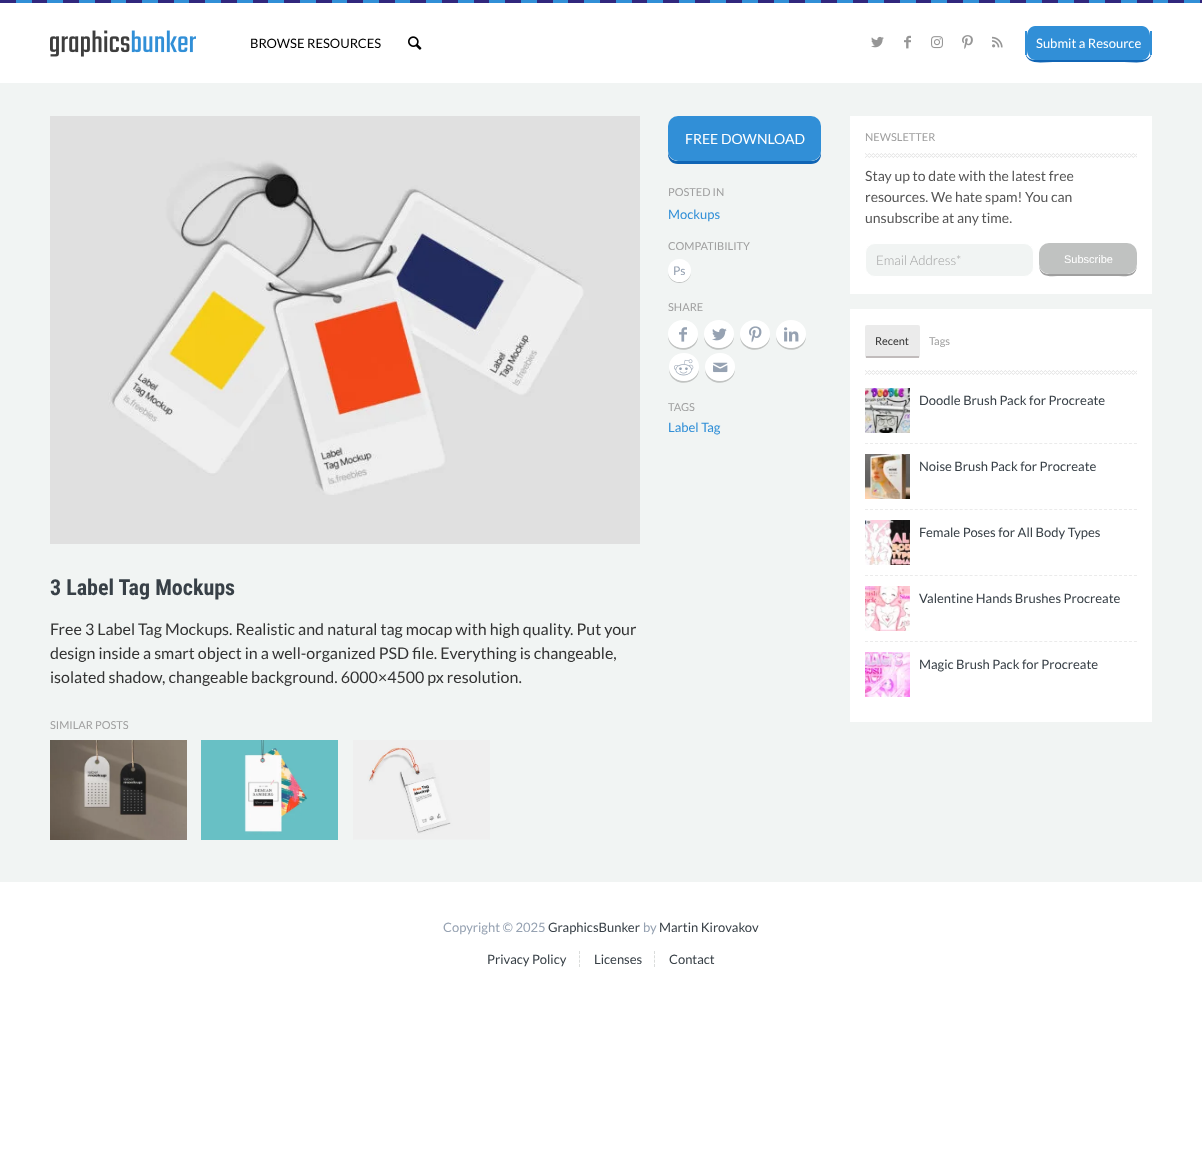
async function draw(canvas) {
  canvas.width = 1202
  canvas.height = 1158
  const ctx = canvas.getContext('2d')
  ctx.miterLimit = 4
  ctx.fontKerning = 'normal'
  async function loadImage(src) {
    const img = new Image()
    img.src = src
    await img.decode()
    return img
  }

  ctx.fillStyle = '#fff'
  ctx.fillRect(0, 0, 1202, 1158)
  ctx.drawImage(await loadImage('image0.png'), 0, 0, 1202, 3)
  ctx.drawImage(await loadImage('image1.png'), 50, 30, 146, 27)
  ctx.drawImage(await loadImage('image2.png'), 871, 36, 13, 12)
  ctx.drawImage(await loadImage('image3.png'), 904, 35, 7, 14)
  ctx.drawImage(await loadImage('image4.png'), 931, 36, 12, 13)
  ctx.drawImage(await loadImage('image5.png'), 962, 35, 11, 14)
  ctx.drawImage(await loadImage('image6.png'), 992, 36, 11, 12)
  ctx.font = '13px Lato'
  ctx.fillStyle = '#000'
  ctx.fillText('BROWSE RESOURCES', 250, 48)
  ctx.drawImage(await loadImage('image7.png'), 408, 36, 14, 14)
  ctx.fillStyle = '#1065b5'
  ctx.beginPath()
  ctx.moveTo(1025, 50)
  ctx.bezierCurveTo(1025, 66, 1041, 62, 1053, 62)
  ctx.lineTo(1124, 62)
  ctx.bezierCurveTo(1136, 62, 1152, 66, 1152, 50)
  ctx.bezierCurveTo(1152, 56, 1148, 60, 1142, 60)
  ctx.lineTo(1035, 60)
  ctx.bezierCurveTo(1029, 60, 1025, 56, 1025, 50)
  ctx.closePath()
  ctx.fill()
  ctx.fillStyle = '#318fd7'
  ctx.beginPath()
  ctx.moveTo(1035, 26)
  ctx.lineTo(1142, 26)
  ctx.bezierCurveTo(1146, 26, 1150, 30, 1150, 36)
  ctx.lineTo(1150, 50)
  ctx.bezierCurveTo(1150, 56, 1146, 60, 1142, 60)
  ctx.lineTo(1035, 60)
  ctx.bezierCurveTo(1031, 60, 1027, 56, 1027, 50)
  ctx.lineTo(1027, 36)
  ctx.bezierCurveTo(1027, 30, 1031, 26, 1035, 26)
  ctx.closePath()
  ctx.fill()
  ctx.fillStyle = '#fff'
  ctx.fillText('Submit a Resource', 1036, 48)
  ctx.fillStyle = '#318fd7'
  ctx.fillRect(1150, 31, 2, 24)
  ctx.fillRect(1025, 31, 2, 24)
  ctx.fillStyle = '#f1f4f3'
  ctx.fillRect(0, 83, 1202, 799)
  ctx.fillStyle = '#1065b5'
  ctx.beginPath()
  ctx.moveTo(668, 151)
  ctx.lineTo(668, 154)
  ctx.bezierCurveTo(668, 160, 672, 164, 678, 164)
  ctx.lineTo(811, 164)
  ctx.bezierCurveTo(817, 164, 821, 160, 821, 154)
  ctx.lineTo(821, 151)
  ctx.bezierCurveTo(821, 157, 817, 161, 811, 161)
  ctx.lineTo(678, 161)
  ctx.bezierCurveTo(672, 161, 668, 157, 668, 151)
  ctx.closePath()
  ctx.fill()
  ctx.fillStyle = '#318fd7'
  ctx.beginPath()
  ctx.roundRect(668, 116, 153, 45, 10)
  ctx.fill()
  ctx.font = '14px Lato'
  ctx.fillStyle = '#fff'
  ctx.fillText('FREE DOWNLOAD', 685, 144)
  ctx.font = '11px Lato'
  ctx.fillStyle = '#9f9f9f'
  ctx.fillText('POSTED IN', 668, 196)
  ctx.font = '13px Lato'
  ctx.fillStyle = '#318fd7'
  ctx.fillText('Mockups', 668, 219)
  ctx.font = '11px Lato'
  ctx.fillStyle = '#9f9f9f'
  ctx.fillText('COMPATIBILITY', 668, 250)
  ctx.fillStyle = '#c1c3c2'
  ctx.beginPath()
  ctx.moveTo(668, 271)
  ctx.bezierCurveTo(667.5, 287, 691.5, 287, 691, 271)
  ctx.bezierCurveTo(690.5, 285.5, 668.5, 285.5, 668, 271)
  ctx.closePath()
  ctx.fill()
  ctx.fillStyle = '#fff'
  ctx.beginPath()
  ctx.arc(679.5, 270.5, 11.5, 0, 2 * Math.PI)
  ctx.fill()
  ctx.font = '12px Lato'
  ctx.fillStyle = '#96a2b2'
  ctx.fillText('Ps', 673, 275)
  ctx.font = '11px Lato'
  ctx.fillStyle = '#9f9f9f'
  ctx.fillText('SHARE', 668, 311)
  ctx.fillStyle = '#c1c3c2'
  ctx.beginPath()
  ctx.moveTo(668, 335)
  ctx.bezierCurveTo(667, 349.5, 687, 355, 695.5, 344)
  ctx.bezierCurveTo(697.5, 341.5, 698, 338, 698, 335)
  ctx.bezierCurveTo(696.5, 352, 669.5, 352, 668, 335)
  ctx.closePath()
  ctx.fill()
  ctx.fillStyle = '#fff'
  ctx.beginPath()
  ctx.ellipse(683, 334, 15, 14, 0, 0, 2 * Math.PI)
  ctx.fill()
  ctx.drawImage(await loadImage('image8.png'), 679, 327, 8, 15)
  ctx.fillStyle = '#c1c3c2'
  ctx.beginPath()
  ctx.moveTo(704, 335)
  ctx.bezierCurveTo(704, 338, 704.5, 341.5, 706.5, 344)
  ctx.bezierCurveTo(715, 355, 735, 349.5, 734, 335)
  ctx.bezierCurveTo(732.5, 352, 705.5, 352, 704, 335)
  ctx.closePath()
  ctx.fill()
  ctx.fillStyle = '#fff'
  ctx.beginPath()
  ctx.ellipse(719, 334, 15, 14, 0, 0, 2 * Math.PI)
  ctx.fill()
  ctx.drawImage(await loadImage('image9.png'), 712, 328, 15, 13)
  ctx.fillStyle = '#c1c3c2'
  ctx.beginPath()
  ctx.moveTo(740, 335)
  ctx.bezierCurveTo(740, 338, 740.5, 341.5, 742.5, 344)
  ctx.bezierCurveTo(751, 355, 771, 349.5, 770, 335)
  ctx.bezierCurveTo(768.5, 352, 741.5, 352, 740, 335)
  ctx.closePath()
  ctx.fill()
  ctx.fillStyle = '#fff'
  ctx.beginPath()
  ctx.ellipse(755, 334, 15, 14, 0, 0, 2 * Math.PI)
  ctx.fill()
  ctx.drawImage(await loadImage('image10.png'), 749, 326, 13, 17)
  ctx.fillStyle = '#c1c3c2'
  ctx.beginPath()
  ctx.moveTo(776, 335)
  ctx.bezierCurveTo(775, 349.5, 795, 355, 803.5, 344)
  ctx.bezierCurveTo(805.5, 341.5, 806, 338, 806, 335)
  ctx.bezierCurveTo(804.5, 352, 777.5, 352, 776, 335)
  ctx.closePath()
  ctx.fill()
  ctx.fillStyle = '#fff'
  ctx.beginPath()
  ctx.ellipse(791, 334, 15, 14, 0, 0, 2 * Math.PI)
  ctx.fill()
  ctx.drawImage(await loadImage('image11.png'), 784, 327, 15, 15)
  ctx.fillStyle = '#c1c3c2'
  ctx.beginPath()
  ctx.moveTo(669, 368)
  ctx.bezierCurveTo(669, 371, 669.5, 374.5, 671.5, 377)
  ctx.bezierCurveTo(680, 388, 700, 382.5, 699, 368)
  ctx.bezierCurveTo(697.5, 385, 670.5, 385, 669, 368)
  ctx.closePath()
  ctx.fill()
  ctx.fillStyle = '#fff'
  ctx.beginPath()
  ctx.ellipse(684, 367, 15, 14, 0, 0, 2 * Math.PI)
  ctx.fill()
  ctx.drawImage(await loadImage('image12.png'), 674, 359, 20, 17)
  ctx.fillStyle = '#c1c3c2'
  ctx.beginPath()
  ctx.moveTo(705, 368)
  ctx.bezierCurveTo(705, 371, 705.5, 374.5, 707.5, 377)
  ctx.bezierCurveTo(716, 388, 736, 382.5, 735, 368)
  ctx.bezierCurveTo(733.5, 385, 706.5, 385, 705, 368)
  ctx.closePath()
  ctx.fill()
  ctx.fillStyle = '#fff'
  ctx.beginPath()
  ctx.ellipse(720, 367, 15, 14, 0, 0, 2 * Math.PI)
  ctx.fill()
  ctx.drawImage(await loadImage('image13.png'), 713, 362, 15, 11)
  ctx.fillStyle = '#9f9f9f'
  ctx.fillText('TAGS', 668, 411)
  ctx.font = '13px Lato'
  ctx.fillStyle = '#318fd7'
  ctx.fillText('Label Tag', 668, 432)
  ctx.drawImage(await loadImage('image14.png'), 50, 116, 590, 428)
  ctx.font = 'bold 22px Roboto Condensed'
  ctx.fillStyle = '#384047'
  ctx.fillText('3 Label Tag Mockups', 50, 595)
  ctx.font = '16px Lato'
  ctx.fillStyle = '#333'
  ctx.fillText('Free 3 Label Tag Mockups. Realistic and natural tag mocap with high quality. Put your', 50, 635)
  ctx.fillText('design inside a smart object in a well-organized PSD file. Everything is changeable,', 50, 659)
  ctx.fillText('isolated shadow, changeable background. 6000×4500 px resolution.', 50, 683)
  ctx.font = '11px Lato'
  ctx.fillStyle = '#9f9f9f'
  ctx.fillText('SIMILAR POSTS', 50, 729)
  ctx.drawImage(await loadImage('image15.png'), 50, 740, 137, 100)
  ctx.drawImage(await loadImage('image16.png'), 201, 740, 137, 100)
  ctx.drawImage(await loadImage('image17.png'), 353, 740, 137, 100)
  ctx.fillStyle = '#fff'
  ctx.fillRect(850, 116, 302, 178)
  ctx.drawImage(await loadImage('image18.png'), 865, 153, 272, 5)
  ctx.fillStyle = '#9f9f9f'
  ctx.fillText('NEWSLETTER', 865, 141)
  ctx.font = '14px Lato'
  ctx.fillStyle = '#555'
  ctx.fillText('Stay up to date with the latest free', 865, 181)
  ctx.fillText('resources. We hate spam! You can', 865, 202)
  ctx.fillText('unsubscribe at any time.', 865, 223)
  ctx.fillStyle = '#f1f4f3'
  ctx.beginPath()
  ctx.roundRect(865.5, 243.5, 168, 33, 9.5)
  ctx.fill()
  ctx.strokeStyle = '#fff'
  ctx.stroke()
  ctx.font = '300 13.25px Lato'
  ctx.fillStyle = '#9f9f9f'
  ctx.fillText('Email Address*', 876, 265)
  ctx.beginPath()
  ctx.moveTo(1039, 264)
  ctx.bezierCurveTo(1039, 279, 1051, 276, 1062, 276)
  ctx.lineTo(1114, 276)
  ctx.bezierCurveTo(1125, 276, 1137, 279, 1137, 264)
  ctx.bezierCurveTo(1137, 270, 1133, 274, 1127, 274)
  ctx.lineTo(1049, 274)
  ctx.bezierCurveTo(1043, 274, 1039, 270, 1039, 264)
  ctx.closePath()
  ctx.fill()
  ctx.fillStyle = '#c0c2c1'
  ctx.beginPath()
  ctx.roundRect(1039, 243, 98, 31, 10)
  ctx.fill()
  ctx.font = '11px Liberation Sans'
  ctx.fillStyle = '#fff'
  ctx.fillText('Subscribe', 1064, 263)
  ctx.fillRect(850, 309, 302, 413)
  ctx.drawImage(await loadImage('image18.png'), 865, 370, 272, 5)
  ctx.fillStyle = '#ebebeb'
  ctx.beginPath()
  ctx.roundRect(865, 325, 55, 33, 2)
  ctx.fill()
  ctx.fillStyle = '#c1bcbc'
  ctx.fillRect(866, 356, 53, 2)
  ctx.font = '11px Lato'
  ctx.fillStyle = '#333'
  ctx.fillText('Recent', 875, 345)
  ctx.fillStyle = '#9f9f9f'
  ctx.fillText('Tags', 929, 345)
  ctx.beginPath()
  ctx.moveTo(865, 443.5)
  ctx.lineTo(1137, 443.5)
  ctx.strokeStyle = '#ebebeb'
  ctx.setLineDash([3, 1.98])
  ctx.stroke()
  ctx.drawImage(await loadImage('image19.png'), 865, 388, 45, 45)
  ctx.font = '13px Lato'
  ctx.fillStyle = '#384047'
  ctx.fillText('Doodle Brush Pack for Procreate', 919, 405)
  ctx.beginPath()
  ctx.moveTo(865, 509.5)
  ctx.lineTo(1137, 509.5)
  ctx.stroke()
  ctx.drawImage(await loadImage('image20.png'), 865, 454, 45, 45)
  ctx.fillText('Noise Brush Pack for Procreate', 919, 471)
  ctx.beginPath()
  ctx.moveTo(865, 575.5)
  ctx.lineTo(1137, 575.5)
  ctx.stroke()
  ctx.drawImage(await loadImage('image21.png'), 865, 520, 45, 45)
  ctx.fillText('Female Poses for All Body Types', 919, 537)
  ctx.beginPath()
  ctx.moveTo(865, 641.5)
  ctx.lineTo(1137, 641.5)
  ctx.stroke()
  ctx.drawImage(await loadImage('image22.png'), 865, 586, 45, 45)
  ctx.fillText('Valentine Hands Brushes Procreate', 919, 603)
  ctx.drawImage(await loadImage('image23.png'), 865, 652, 45, 45)
  ctx.fillText('Magic Brush Pack for Procreate', 919, 669)
  ctx.fillStyle = '#96a2b2'
  ctx.fillText('Copyright © 2025', 443, 932)
  ctx.fillStyle = '#384047'
  ctx.fillText('GraphicsBunker', 548, 932)
  ctx.fillStyle = '#96a2b2'
  ctx.fillText('by', 643, 932)
  ctx.fillStyle = '#384047'
  ctx.fillText('Martin Kirovakov', 659, 932)
  ctx.fillText('Privacy Policy', 487, 964)
  ctx.fillText('Licenses', 594, 964)
  ctx.beginPath()
  ctx.moveTo(579.5, 951)
  ctx.lineTo(579.5, 967)
  ctx.strokeStyle = '#dadcdb'
  ctx.setLineDash([3, 1.33])
  ctx.stroke()
  ctx.fillText('Contact', 669, 964)
  ctx.beginPath()
  ctx.moveTo(654.5, 951)
  ctx.lineTo(654.5, 967)
  ctx.stroke()
}

draw(document.querySelector('canvas'))
